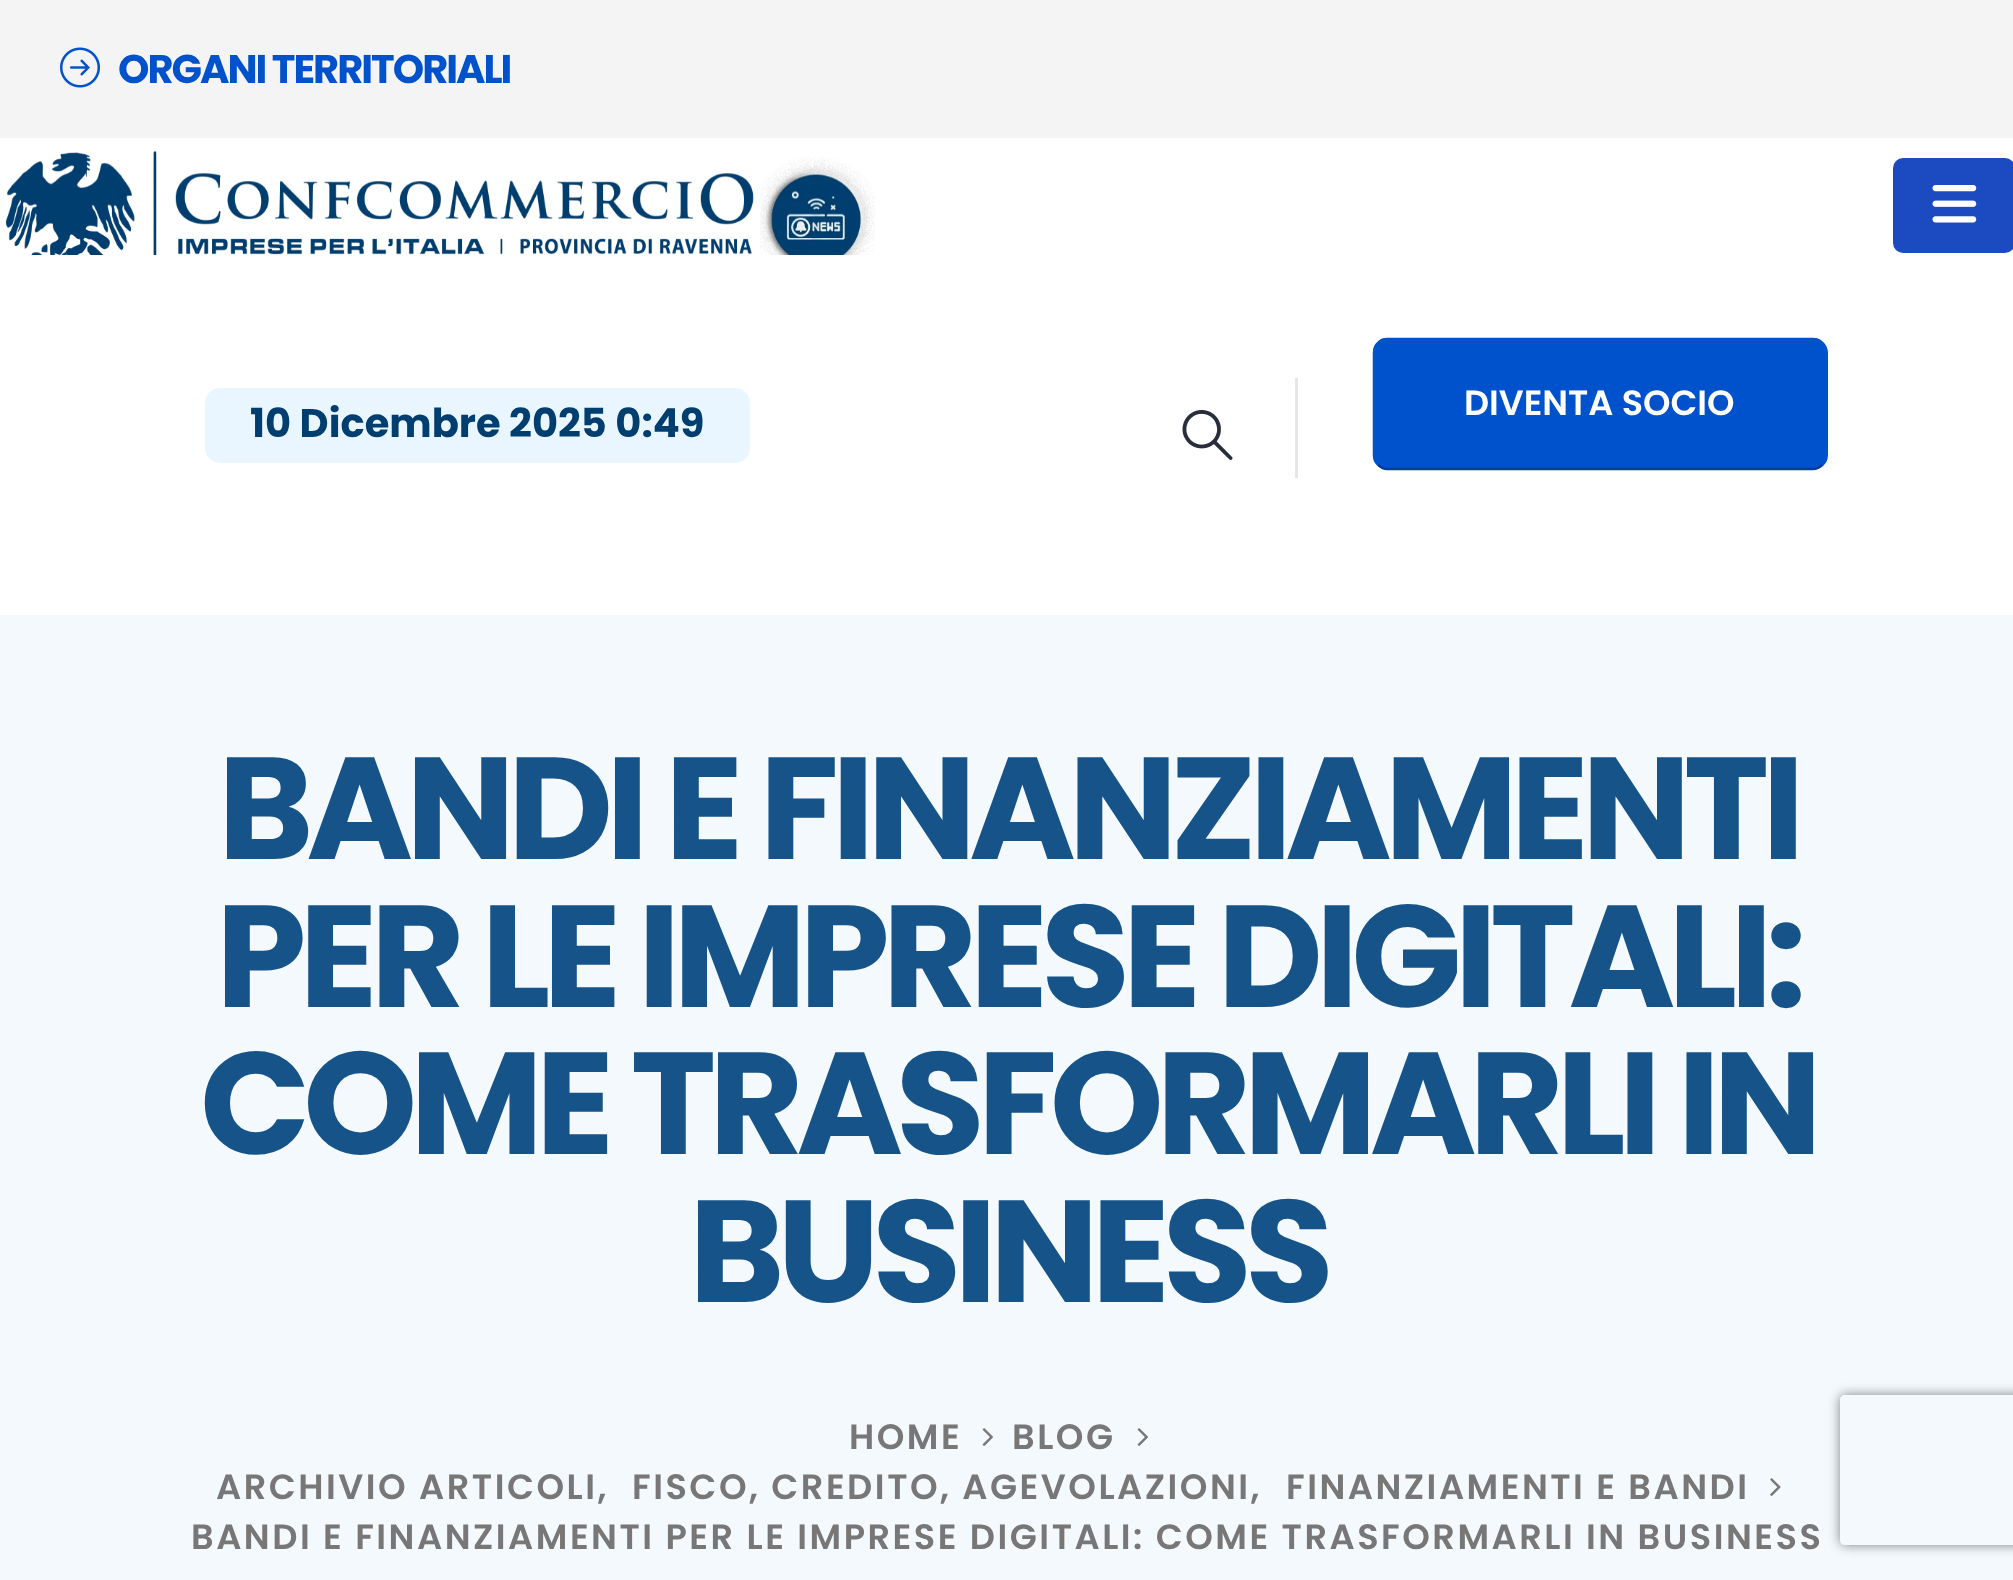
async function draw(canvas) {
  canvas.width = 2013
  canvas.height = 1580
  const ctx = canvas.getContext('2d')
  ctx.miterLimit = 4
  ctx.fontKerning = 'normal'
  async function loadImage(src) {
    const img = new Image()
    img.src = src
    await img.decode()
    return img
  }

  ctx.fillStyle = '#fff'
  ctx.fillRect(0, 0, 2013, 1580)
  ctx.fillStyle = '#f4f4f4'
  ctx.fillRect(0, 0, 2013, 138)
  ctx.drawImage(await loadImage('image0.png'), 60, 47, 40, 41)
  ctx.letterSpacing = '-2px'
  ctx.font = 'bold 40px Poppins'
  ctx.fillStyle = '#0052cc'
  ctx.fillText('ORGANI TERRITORIALI', 118, 83)
  ctx.drawImage(await loadImage('image1.png'), 5, 151, 870, 104)
  ctx.fillStyle = '#1b4ac1'
  ctx.beginPath()
  ctx.roundRect(1893, 158, 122, 95, 10)
  ctx.fill()
  ctx.drawImage(await loadImage('image2.png'), 1932, 185, 45, 38)
  ctx.fillStyle = '#eaf6ff'
  ctx.beginPath()
  ctx.roundRect(205, 388, 545, 75, 15)
  ctx.fill()
  ctx.letterSpacing = '0px'
  ctx.fillStyle = '#003e6f'
  ctx.fillText('10 Dicembre 2025 0:49', 250, 437)
  ctx.fillStyle = '#e7e7e7'
  ctx.fillRect(1295, 378, 3, 100)
  ctx.fillStyle = '#0052cc'
  ctx.beginPath()
  ctx.roundRect(1373, 338, 455, 132, 15)
  ctx.fill()
  ctx.beginPath()
  ctx.moveTo(1822, 464.5)
  ctx.bezierCurveTo(1819.5, 467.5, 1816, 469, 1812.5, 469)
  ctx.lineTo(1387.5, 469)
  ctx.bezierCurveTo(1384, 469, 1380.5, 467.5, 1378, 464.5)
  ctx.strokeStyle = '#003e99'
  ctx.lineWidth = 2.5
  ctx.stroke()
  ctx.beginPath()
  ctx.moveTo(1378, 464.5)
  ctx.bezierCurveTo(1375, 462, 1374, 458.5, 1374, 455)
  ctx.lineTo(1374, 352.5)
  ctx.bezierCurveTo(1374, 349, 1375, 345.5, 1378, 343)
  ctx.bezierCurveTo(1380.5, 340, 1384, 339, 1387.5, 339)
  ctx.lineTo(1812.5, 339)
  ctx.bezierCurveTo(1816, 339, 1819.5, 340, 1822, 343)
  ctx.bezierCurveTo(1825, 345.5, 1826, 349, 1826, 352.5)
  ctx.lineTo(1826, 455)
  ctx.bezierCurveTo(1826, 458.5, 1825, 462, 1822, 464.5)
  ctx.strokeStyle = '#0052cc'
  ctx.stroke()
  ctx.font = '600 35px Poppins'
  ctx.fillStyle = '#fff'
  ctx.fillText('DIVENTA SOCIO', 1464, 415)
  ctx.drawImage(await loadImage('image3.png'), 1182, 410, 51, 50)
  ctx.fillStyle = '#f4f9fd'
  ctx.fillRect(0, 615, 2013, 965)
  ctx.letterSpacing = '-7.25px'
  ctx.font = 'bold 145px Poppins'
  ctx.fillStyle = '#165389'
  ctx.fillText('BANDI E FINANZIAMENTI', 218, 859)
  ctx.fillText('PER LE IMPRESE DIGITALI:', 216, 1007)
  ctx.fillText('COME TRASFORMARLI IN', 200, 1154)
  ctx.fillText('BUSINESS', 689, 1302)
  ctx.letterSpacing = '2.5px'
  ctx.font = '600 35.2px Poppins'
  ctx.fillStyle = '#777'
  ctx.fillText('HOME', 849, 1449)
  ctx.drawImage(await loadImage('image4.png'), 982, 1428, 11, 18)
  ctx.fillText('BLOG', 1012, 1449)
  ctx.drawImage(await loadImage('image4.png'), 1137, 1428, 11, 18)
  ctx.fillText('ARCHIVIO ARTICOLI,', 216, 1499)
  ctx.fillText('FISCO, CREDITO, AGEVOLAZIONI,', 632, 1499)
  ctx.fillText('FINANZIAMENTI E BANDI', 1286, 1499)
  ctx.drawImage(await loadImage('image5.png'), 1770, 1478, 11, 18)
  ctx.fillText('BANDI E FINANZIAMENTI PER LE IMPRESE DIGITALI: COME TRASFORMARLI IN BUSINESS', 191, 1549)
  ctx.save()
  ctx.beginPath()
  ctx.moveTo(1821, 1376)
  ctx.lineTo(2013, 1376)
  ctx.lineTo(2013, 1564)
  ctx.lineTo(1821, 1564)
  ctx.closePath()
  ctx.moveTo(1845, 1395)
  ctx.lineTo(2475, 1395)
  ctx.bezierCurveTo(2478, 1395, 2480, 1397, 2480, 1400)
  ctx.lineTo(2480, 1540)
  ctx.bezierCurveTo(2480, 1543, 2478, 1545, 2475, 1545)
  ctx.lineTo(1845, 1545)
  ctx.bezierCurveTo(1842, 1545, 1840, 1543, 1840, 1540)
  ctx.lineTo(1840, 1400)
  ctx.bezierCurveTo(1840, 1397, 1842, 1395, 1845, 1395)
  ctx.closePath()
  ctx.clip('evenodd')
  ctx.fillStyle = '#808080'
  ctx.filter = 'blur(6px)'
  ctx.beginPath()
  ctx.roundRect(1840, 1395, 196, 150, 5)
  ctx.fill()
  ctx.filter = 'none'
  ctx.restore()
}

draw(document.querySelector('canvas'))
